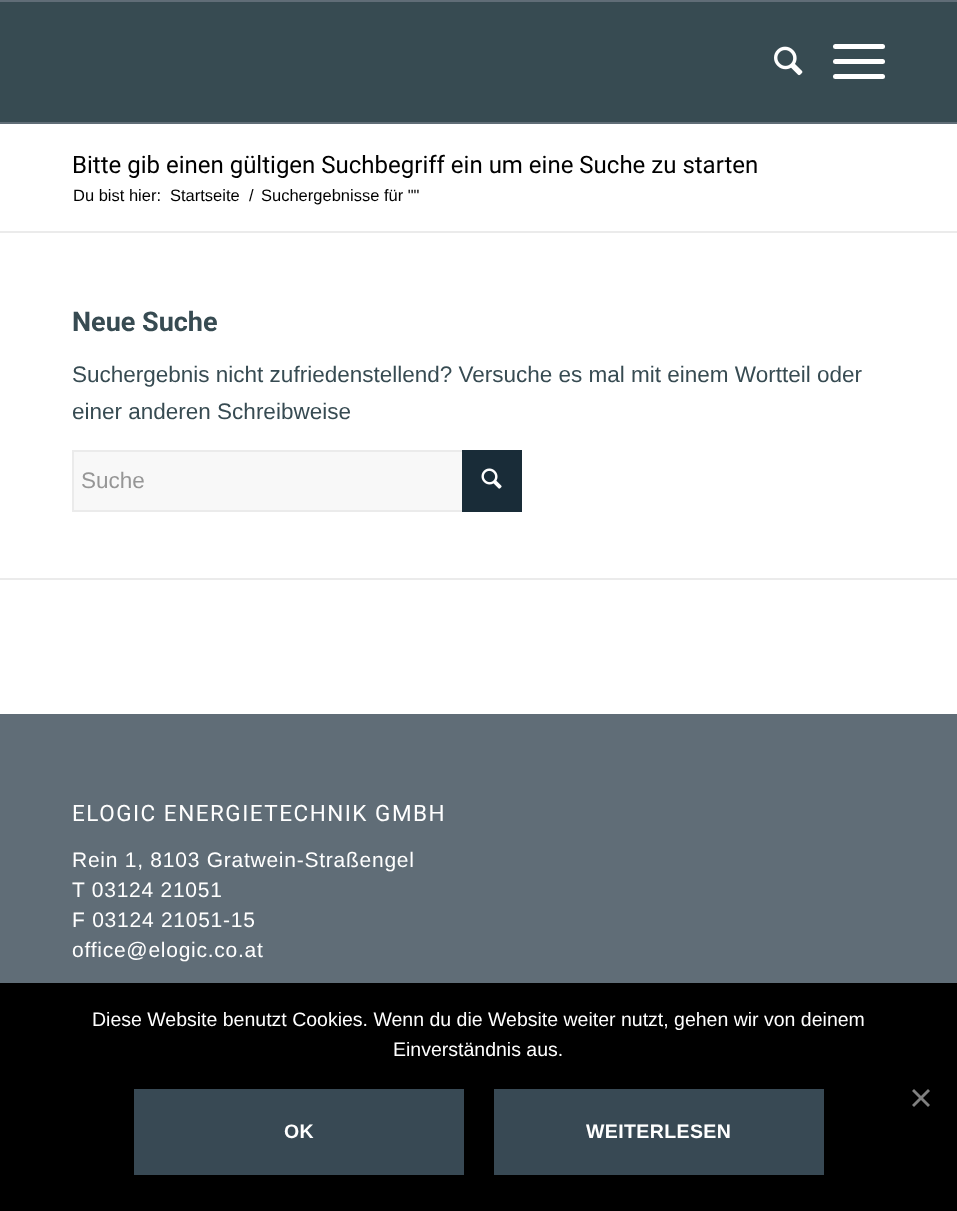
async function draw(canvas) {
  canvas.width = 957
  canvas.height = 1211
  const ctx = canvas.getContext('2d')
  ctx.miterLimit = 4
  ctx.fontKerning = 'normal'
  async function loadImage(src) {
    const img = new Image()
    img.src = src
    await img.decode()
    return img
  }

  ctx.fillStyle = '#fff'
  ctx.fillRect(0, 0, 957, 1211)
  ctx.fillStyle = '#606d77'
  ctx.fillRect(0, 0, 957, 2)
  ctx.fillRect(0, 122, 957, 2)
  ctx.fillStyle = '#374b52'
  ctx.fillRect(0, 2, 957, 120)
  ctx.drawImage(await loadImage('image0.png'), 774, 46, 29, 30)
  ctx.fillStyle = '#fff'
  ctx.beginPath()
  ctx.roundRect(833, 59, 52, 5, 2.5)
  ctx.fill()
  ctx.beginPath()
  ctx.roundRect(833, 44, 52, 5, 2.5)
  ctx.fill()
  ctx.beginPath()
  ctx.roundRect(833, 74, 52, 5, 2.5)
  ctx.fill()
  ctx.font = '24px Roboto'
  ctx.fillStyle = '#000'
  ctx.fillText('Bitte gib einen gültigen Suchbegriff ein um eine Suche zu starten', 72, 173)
  ctx.font = '16.5px Liberation Sans'
  ctx.fillText('Du bist hier:', 73, 201)
  ctx.fillText('Startseite', 170, 201)
  ctx.fillText('/', 249, 201)
  ctx.fillText('Suchergebnisse für ""', 261, 201)
  ctx.fillStyle = '#ebebeb'
  ctx.fillRect(0, 231, 957, 2)
  ctx.font = 'bold 27px Roboto'
  ctx.fillStyle = '#374b52'
  ctx.fillText('Neue Suche', 72, 331)
  ctx.font = '22.5px Liberation Sans'
  ctx.fillText('Suchergebnis nicht zufriedenstellend? Versuche es mal mit einem Wortteil oder', 72, 382)
  ctx.fillText('einer anderen Schreibweise', 72, 419)
  ctx.fillStyle = '#f8f8f8'
  ctx.fillRect(74, 452, 388, 58)
  ctx.strokeStyle = '#ebebeb'
  ctx.lineWidth = 2
  ctx.strokeRect(73, 451, 448, 60)
  ctx.fillStyle = '#969696'
  ctx.fillText('Suche', 81, 488)
  ctx.fillStyle = '#192c38'
  ctx.fillRect(462, 450, 60, 62)
  ctx.drawImage(await loadImage('image1.png'), 481, 468, 21, 21)
  ctx.fillStyle = '#ebebeb'
  ctx.fillRect(0, 578, 957, 2)
  ctx.fillStyle = '#606d77'
  ctx.fillRect(0, 714, 957, 269)
  ctx.letterSpacing = '1.5px'
  ctx.font = '22.5px Roboto'
  ctx.fillStyle = '#fff'
  ctx.fillText('ELOGIC ENERGIETECHNIK GMBH', 72, 821)
  ctx.letterSpacing = '0.75px'
  ctx.font = '21px Liberation Sans'
  ctx.fillText('Rein 1, 8103 Gratwein-Straßengel', 72, 867)
  ctx.fillText('T 03124 21051', 72, 897)
  ctx.fillText('F 03124 21051-15', 72, 927)
  ctx.fillText('office@elogic.co.at', 72, 957)
  ctx.fillStyle = '#000'
  ctx.fillRect(0, 983, 957, 228)
  ctx.letterSpacing = '0px'
  ctx.font = '19.5px Liberation Sans'
  ctx.fillStyle = '#fff'
  ctx.fillText('Diese Website benutzt Cookies. Wenn du die Website weiter nutzt, gehen wir von deinem', 92, 1026)
  ctx.fillText('Einverständnis aus.', 393, 1056)
  ctx.fillStyle = '#808080'
  ctx.beginPath()
  ctx.moveTo(928, 1089)
  ctx.lineTo(930, 1091)
  ctx.lineTo(914, 1107)
  ctx.lineTo(912, 1105)
  ctx.closePath()
  ctx.fill()
  ctx.beginPath()
  ctx.moveTo(912, 1091)
  ctx.lineTo(914, 1089)
  ctx.lineTo(930, 1105)
  ctx.lineTo(928, 1107)
  ctx.closePath()
  ctx.fill()
  ctx.fillStyle = '#384954'
  ctx.fillRect(134, 1089, 330, 86)
  ctx.letterSpacing = '0.4px'
  ctx.font = 'bold 19.5px Liberation Sans'
  ctx.fillStyle = '#fff'
  ctx.fillText('OK', 284, 1138)
  ctx.fillStyle = '#384954'
  ctx.fillRect(494, 1089, 330, 86)
  ctx.fillStyle = '#fff'
  ctx.fillText('WEITERLESEN', 586, 1138)
}

draw(document.querySelector('canvas'))
